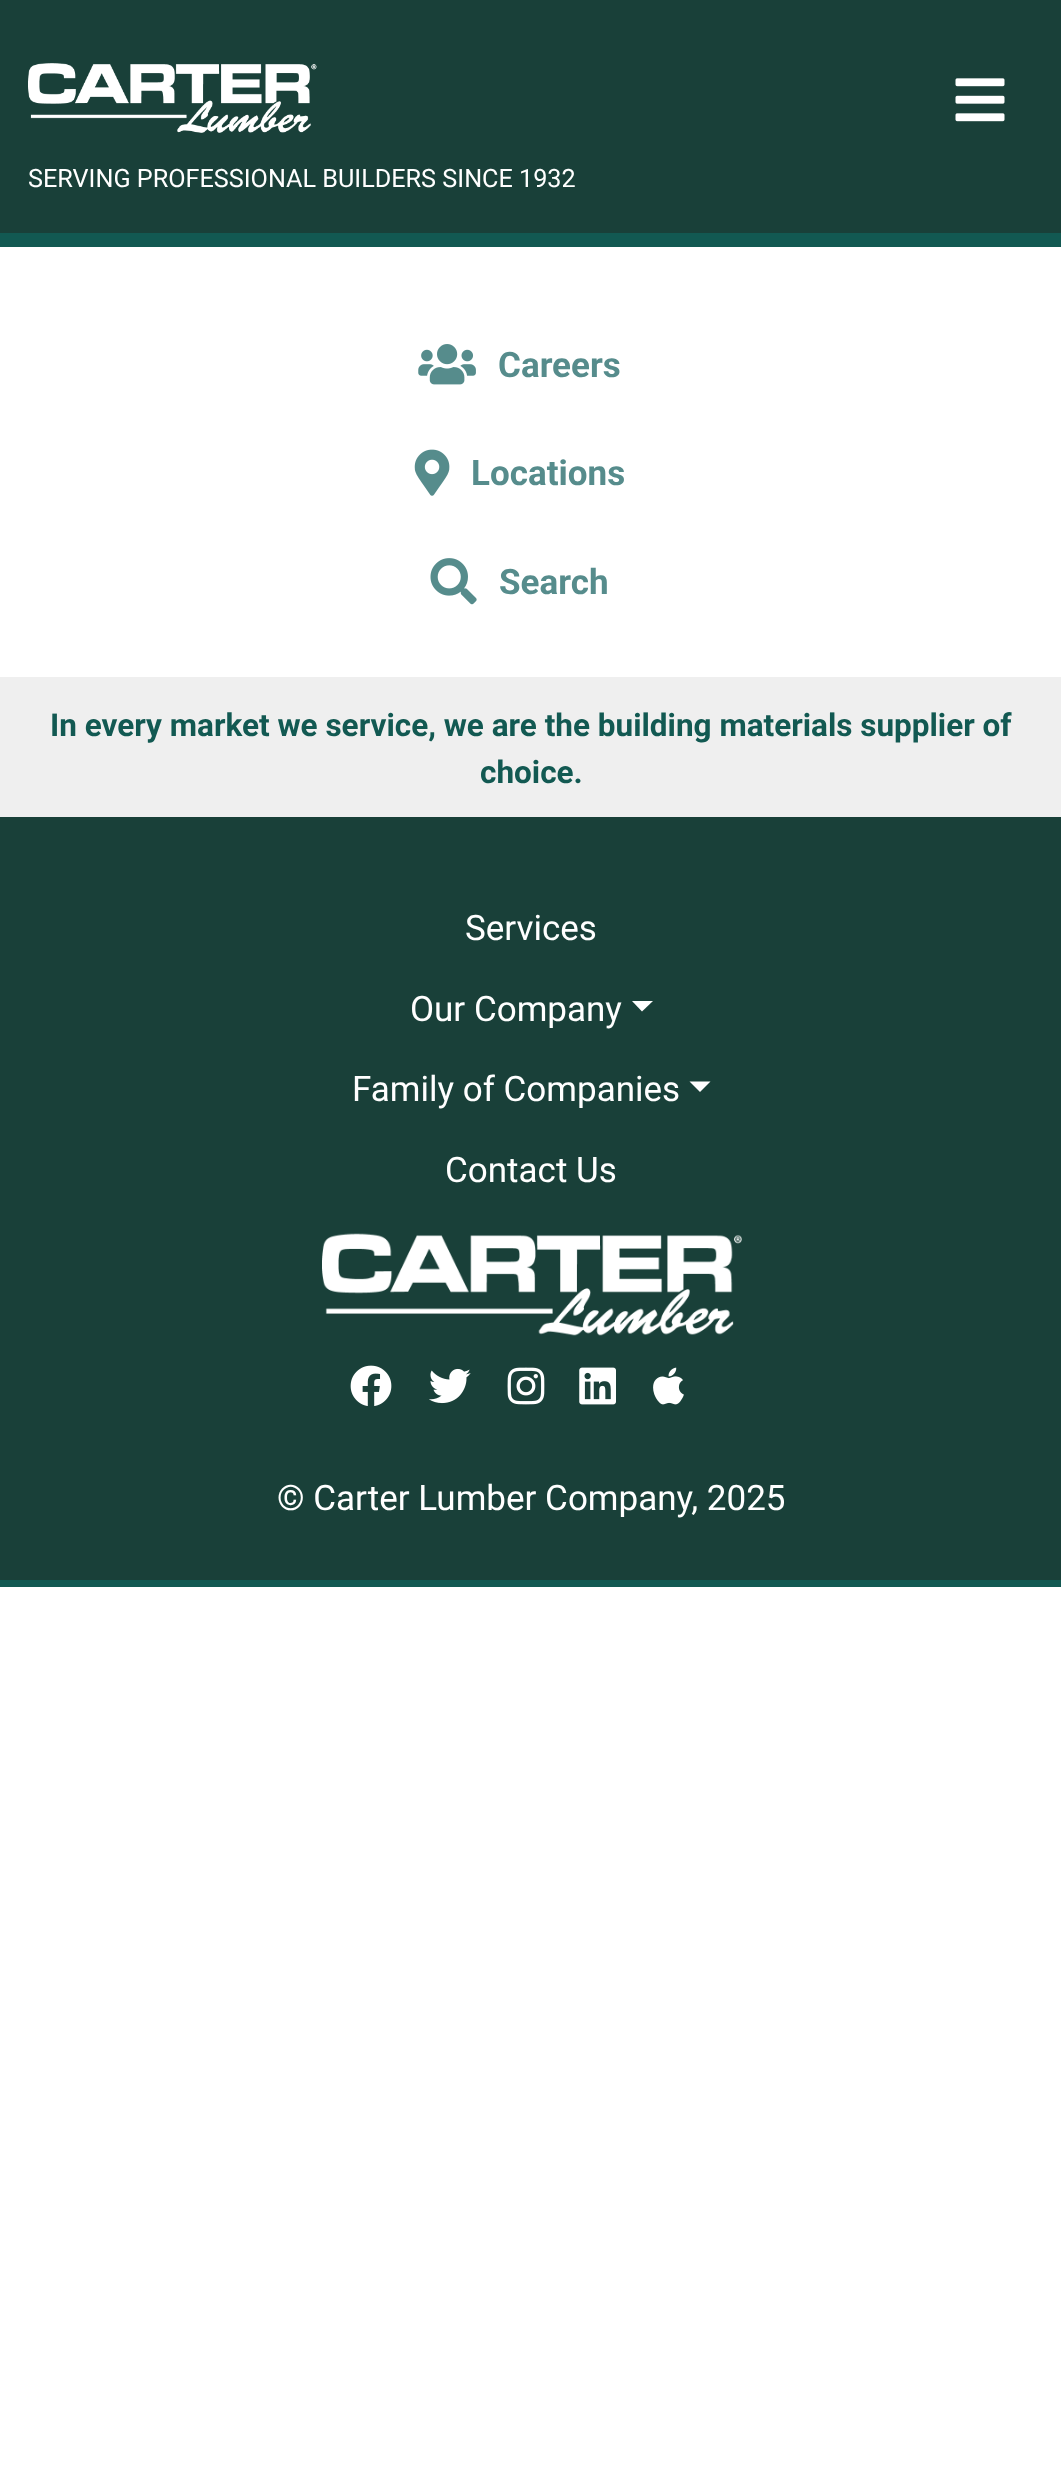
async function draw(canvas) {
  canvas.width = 1061
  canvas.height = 2469
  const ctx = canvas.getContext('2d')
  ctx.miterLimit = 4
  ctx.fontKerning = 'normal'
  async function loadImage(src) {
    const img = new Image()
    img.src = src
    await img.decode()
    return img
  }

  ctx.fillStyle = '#fff'
  ctx.fillRect(0, 0, 1061, 2469)
  ctx.fillStyle = '#194039'
  ctx.fillRect(0, 0, 1061, 233)
  ctx.fillStyle = '#125952'
  ctx.fillRect(0, 233, 1061, 14)
  ctx.drawImage(await loadImage('image0.png'), 28, 63, 289, 70)
  ctx.drawImage(await loadImage('image1.png'), 955, 78, 50, 44)
  ctx.font = '25.2px Roboto'
  ctx.fillStyle = '#fff'
  ctx.fillText('SERVING PROFESSIONAL BUILDERS SINCE 1932', 28, 187)
  ctx.drawImage(await loadImage('image2.png'), 418, 344, 58, 41)
  ctx.font = 'bold 35px Roboto'
  ctx.fillStyle = '#568c8c'
  ctx.fillText('Careers', 498, 377)
  ctx.drawImage(await loadImage('image3.png'), 414, 449, 36, 47)
  ctx.fillText('Locations', 471, 485)
  ctx.drawImage(await loadImage('image4.png'), 430, 558, 47, 47)
  ctx.fillText('Search', 499, 594)
  ctx.fillStyle = '#efefef'
  ctx.fillRect(0, 677, 1061, 140)
  ctx.font = 'bold 31.5px Roboto'
  ctx.fillStyle = '#125952'
  ctx.fillText('In every market we service, we are the building materials supplier of', 50, 736)
  ctx.fillText('choice.', 480, 783)
  ctx.fillStyle = '#194039'
  ctx.fillRect(0, 817, 1061, 763)
  ctx.fillStyle = '#125952'
  ctx.fillRect(0, 1580, 1061, 7)
  ctx.font = '35px Roboto'
  ctx.fillStyle = '#fff'
  ctx.fillText('Services', 465, 940)
  ctx.fillText('Our Company', 410, 1021)
  ctx.beginPath()
  ctx.moveTo(632, 1001)
  ctx.lineTo(653, 1001)
  ctx.lineTo(642, 1011.5)
  ctx.closePath()
  ctx.fill()
  ctx.fillText('Family of Companies', 352, 1101)
  ctx.beginPath()
  ctx.moveTo(689.5, 1081.5)
  ctx.lineTo(710.5, 1081.5)
  ctx.lineTo(700, 1092)
  ctx.closePath()
  ctx.fill()
  ctx.fillText('Contact Us', 445, 1182)
  ctx.drawImage(await loadImage('image5.png'), 322, 1233, 420, 103)
  ctx.drawImage(await loadImage('image6.png'), 350, 1365, 42, 41)
  ctx.drawImage(await loadImage('image7.png'), 429, 1368, 42, 36)
  ctx.drawImage(await loadImage('image8.png'), 507, 1367, 38, 38)
  ctx.drawImage(await loadImage('image9.png'), 579, 1367, 37, 38)
  ctx.drawImage(await loadImage('image10.png'), 653, 1367, 31, 38)
  ctx.fillText('© Carter Lumber Company, 2025', 277, 1510)
}

draw(document.querySelector('canvas'))
